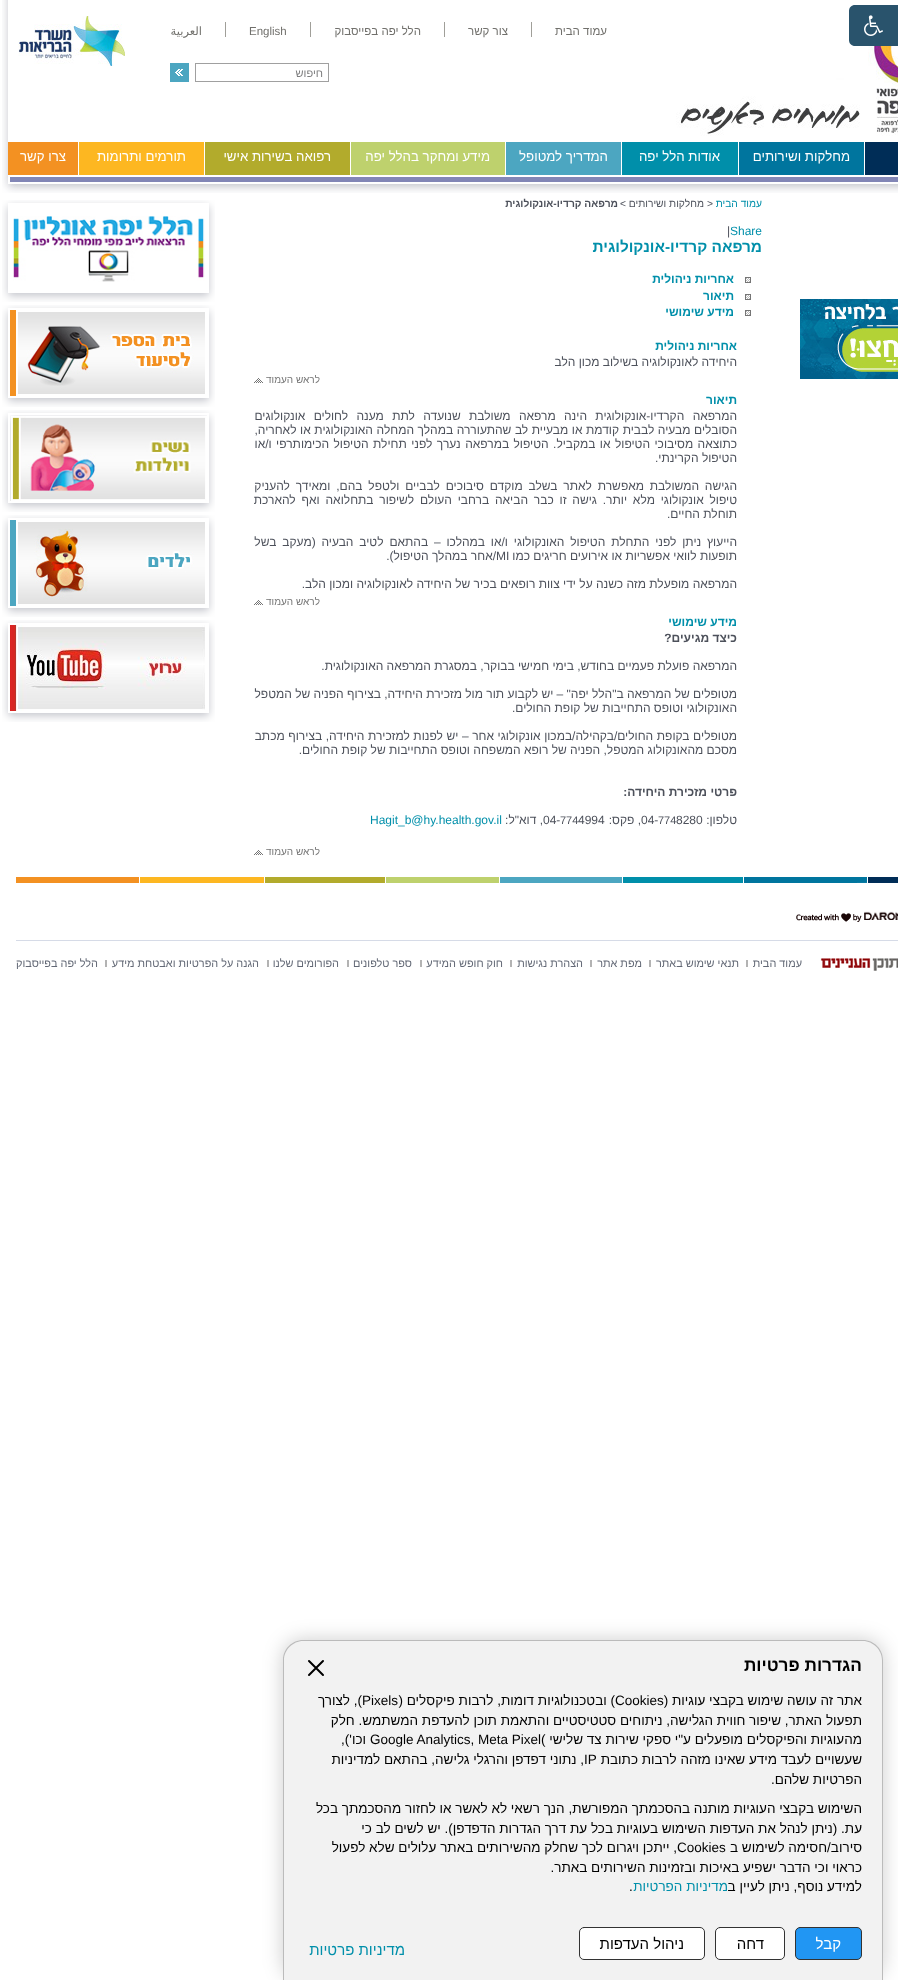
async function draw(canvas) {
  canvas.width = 898
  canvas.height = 1980
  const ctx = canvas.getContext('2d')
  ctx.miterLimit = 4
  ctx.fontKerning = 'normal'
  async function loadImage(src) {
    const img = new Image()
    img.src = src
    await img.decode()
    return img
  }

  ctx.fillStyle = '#fff'
  ctx.fillRect(0, 0, 898, 1980)
  ctx.drawImage(await loadImage('image1.png'), 2, 0, 896, 193)
  ctx.drawImage(await loadImage('image2.png'), 676, 8, 222, 128)
  ctx.fillStyle = '#29536c'
  ctx.beginPath()
  ctx.moveTo(855, 5)
  ctx.lineTo(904, 5)
  ctx.lineTo(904, 46)
  ctx.lineTo(855, 46)
  ctx.bezierCurveTo(851.5, 46, 849, 43.5, 849, 40)
  ctx.lineTo(849, 11)
  ctx.bezierCurveTo(849, 7.5, 851.5, 5, 855, 5)
  ctx.closePath()
  ctx.fill()
  ctx.drawImage(await loadImage('image0.png'), 864, 15, 19, 21)
  ctx.direction = 'rtl'
  ctx.font = '11.5px Liberation Sans'
  ctx.fillStyle = '#71706c'
  ctx.fillText('עמוד הבית', 607, 35)
  ctx.fillStyle = '#a09f99'
  ctx.fillRect(531, 22, 1, 15)
  ctx.fillStyle = '#71706c'
  ctx.fillText('צור קשר', 508, 35)
  ctx.fillStyle = '#a09f99'
  ctx.fillRect(444, 22, 1, 15)
  ctx.fillStyle = '#71706c'
  ctx.fillText('הלל יפה בפייסבוק', 421, 35)
  ctx.fillStyle = '#a09f99'
  ctx.fillRect(310, 22, 1, 15)
  ctx.direction = 'ltr'
  ctx.fillStyle = '#71706c'
  ctx.fillText('English', 249, 35)
  ctx.fillStyle = '#a09f99'
  ctx.fillRect(225, 22, 1, 15)
  ctx.direction = 'rtl'
  ctx.font = '11.5px DejaVu Sans'
  ctx.fillStyle = '#71706c'
  ctx.fillText('العربية', 202, 35)
  ctx.strokeStyle = '#a0a0a0'
  ctx.strokeRect(195.5, 63.5, 133, 18)
  ctx.font = '11px Liberation Sans'
  ctx.fillStyle = '#7d7d7e'
  ctx.fillText('חיפוש', 323, 77)
  ctx.drawImage(await loadImage('image3.png'), 170, 63, 19, 19)
  ctx.fillStyle = '#8286b6'
  ctx.fillRect(10, 177, 888, 5)
  ctx.fillStyle = '#002d57'
  ctx.fillRect(865, 142, 33, 33)
  ctx.fillStyle = '#00759e'
  ctx.fillRect(739, 142, 125, 33)
  ctx.font = '13.25px Liberation Sans'
  ctx.fillStyle = '#fff'
  ctx.fillText('מחלקות ושירותים', 850, 161)
  ctx.fillStyle = '#008faa'
  ctx.fillRect(622, 142, 116, 33)
  ctx.fillStyle = '#fff'
  ctx.fillText('אודות הלל יפה', 720, 161)
  ctx.fillStyle = '#4ca6c1'
  ctx.fillRect(506, 142, 115, 33)
  ctx.fillStyle = '#fff'
  ctx.fillText('המדריך למטופל', 608, 161)
  ctx.fillStyle = '#bed16d'
  ctx.fillRect(351, 142, 154, 33)
  ctx.fillStyle = '#fff'
  ctx.fillText('מידע ומחקר בהלל יפה', 490, 161)
  ctx.fillStyle = '#b2ab2c'
  ctx.fillRect(205, 142, 145, 33)
  ctx.fillStyle = '#fff'
  ctx.fillText('רפואה בשירות אישי', 331, 161)
  ctx.fillStyle = '#fdb721'
  ctx.fillRect(79, 142, 125, 33)
  ctx.fillStyle = '#fff'
  ctx.fillText('תורמים ותרומות', 186, 161)
  ctx.fillStyle = '#f39122'
  ctx.fillRect(8, 142, 70, 33)
  ctx.fillStyle = '#fff'
  ctx.fillText('צרו קשר', 66, 161)
  ctx.drawImage(await loadImage('image4.png'), 800, 299, 98, 80)
  ctx.font = '10.25px Liberation Sans'
  ctx.fillStyle = '#008faa'
  ctx.fillText('עמוד הבית', 762, 207)
  ctx.direction = 'ltr'
  ctx.fillStyle = '#4d515b'
  ctx.fillText('>', 707, 207)
  ctx.direction = 'rtl'
  ctx.fillText('מחלקות ושירותים >', 704, 207)
  ctx.font = 'bold 10.25px Liberation Sans'
  ctx.fillText('מרפאה קרדיו-אונקולוגית', 618, 207)
  ctx.direction = 'ltr'
  ctx.font = '12px Liberation Sans'
  ctx.fillStyle = '#008faa'
  ctx.fillText('Share', 730, 235)
  ctx.fillStyle = '#4d515b'
  ctx.fillText('|', 727, 235)
  ctx.direction = 'rtl'
  ctx.font = 'bold 15.4px Liberation Sans'
  ctx.fillStyle = '#008faa'
  ctx.fillText('מרפאה קרדיו-אונקולוגית', 762, 252)
  ctx.drawImage(await loadImage('image5.png'), 745, 277, 6, 6)
  ctx.font = 'bold 12px Liberation Sans'
  ctx.fillText('אחריות ניהולית', 734, 283)
  ctx.drawImage(await loadImage('image5.png'), 745, 294, 6, 6)
  ctx.fillText('תיאור', 734, 300)
  ctx.drawImage(await loadImage('image5.png'), 745, 310, 6, 6)
  ctx.fillText('מידע שימושי', 734, 316)
  ctx.fillText('אחריות ניהולית', 737, 350)
  ctx.font = '12px Liberation Sans'
  ctx.fillStyle = '#4d515b'
  ctx.fillText('היחידה לאונקולוגיה בשילוב מכון הלב', 737, 366)
  ctx.font = '10px Liberation Sans'
  ctx.fillStyle = '#757575'
  ctx.fillText('לראש העמוד', 320, 383)
  ctx.drawImage(await loadImage('image6.png'), 254, 378, 9, 5)
  ctx.font = 'bold 12px Liberation Sans'
  ctx.fillStyle = '#008faa'
  ctx.fillText('תיאור', 737, 404)
  ctx.wordSpacing = '5px'
  ctx.font = '12px Liberation Sans'
  ctx.fillStyle = '#4d515b'
  ctx.fillText('המרפאה הקרדיו-אונקולוגית הינה מרפאה משולבת שנועדה לתת מענה לחולים אונקולוגים', 737, 420)
  ctx.wordSpacing = '0.25px'
  ctx.fillText('הסובלים מבעיה לבבית קודמת או מבעיית לב שהתעוררה במהלך המחלה האונקולוגית או לאחריה,', 737, 434)
  ctx.wordSpacing = '1.1px'
  ctx.fillText('כתוצאה מסיבוכי הטיפול או במקביל. הטיפול במרפאה נערך לפני תחילת הטיפול הכימותרפי ו/או', 737, 448)
  ctx.wordSpacing = '0px'
  ctx.fillText('הטיפול הקרינתי.', 737, 462)
  ctx.wordSpacing = '2.5px'
  ctx.fillText('הגישה המשולבת מאפשרת לאתר בשלב מוקדם סיבוכים לבביים ולטפל בהם, ומאידך להעניק', 737, 490)
  ctx.fillText('טיפול אונקולוגי מלא יותר. גישה זו כבר הביאה ברחבי העולם לשיפור בתחלואה ואף להארכת', 737, 504)
  ctx.wordSpacing = '0px'
  ctx.fillText('תוחלת החיים.', 737, 518)
  ctx.wordSpacing = '2.5px'
  ctx.fillText('הייעוץ ניתן לפני התחלת הטיפול האונקולוגי ו/או במהלכו – בהתאם לטיב הבעיה (מעקב בשל', 737, 546)
  ctx.wordSpacing = '0px'
  ctx.fillText('תופעות לוואי אפשריות או אירועים חריגים כמו', 737, 560)
  ctx.direction = 'ltr'
  ctx.fillText('MI', 496, 560)
  ctx.direction = 'rtl'
  ctx.fillText('/אחר במהלך הטיפול).', 496, 560)
  ctx.fillText('המרפאה מופעלת מזה כשנה על ידי צוות רופאים בכיר של היחידה לאונקולוגיה ומכון הלב.', 737, 588)
  ctx.font = '10px Liberation Sans'
  ctx.fillStyle = '#757575'
  ctx.fillText('לראש העמוד', 320, 605)
  ctx.drawImage(await loadImage('image6.png'), 254, 600, 9, 5)
  ctx.font = 'bold 12px Liberation Sans'
  ctx.fillStyle = '#008faa'
  ctx.fillText('מידע שימושי', 737, 626)
  ctx.fillStyle = '#4d515b'
  ctx.fillText('כיצד מגיעים?', 737, 642)
  ctx.font = '12px Liberation Sans'
  ctx.fillText('המרפאה פועלת פעמיים בחודש, בימי חמישי בבוקר, במסגרת המרפאה האונקולוגית.', 737, 670)
  ctx.fillText('מטופלים של המרפאה ב"הלל יפה" – יש לקבוע תור מול מזכירת היחידה, בצירוף הפניה של המטפל', 737, 698)
  ctx.fillText('האונקולוגי וטופס התחייבות של קופת החולים.', 737, 712)
  ctx.wordSpacing = '0.25px'
  ctx.fillText('מטופלים בקופת החולים/בקהילה/במכון אונקולוגי אחר – יש לפנות למזכירת היחידה, בצירוף מכתב', 737, 740)
  ctx.wordSpacing = '0px'
  ctx.fillText('מסכם מהאונקולוג המטפל, הפניה של רופא המשפחה וטופס התחייבות של קופת החולים.', 737, 754)
  ctx.font = 'bold 12px Liberation Sans'
  ctx.fillText('פרטי מזכירת היחידה:', 737, 796)
  ctx.font = '12px Liberation Sans'
  ctx.fillText('טלפון:', 737, 824)
  ctx.direction = 'ltr'
  ctx.fillText('8280', 676, 824)
  ctx.font = '11px Liberation Sans'
  ctx.fillText('774', 658, 824)
  ctx.font = '12px Liberation Sans'
  ctx.fillText('04-', 641, 824)
  ctx.direction = 'rtl'
  ctx.fillText(', פקס:', 641, 824)
  ctx.direction = 'ltr'
  ctx.font = '11px Liberation Sans'
  ctx.fillText('774', 560, 824)
  ctx.font = '12px Liberation Sans'
  ctx.fillText('4994', 578, 824)
  ctx.fillText('04-', 543, 824)
  ctx.direction = 'rtl'
  ctx.fillText(', דוא"ל:', 543, 824)
  ctx.direction = 'ltr'
  ctx.fillStyle = '#008faa'
  ctx.fillText('Hagit_b@hy.health.gov.il', 370, 824)
  ctx.direction = 'rtl'
  ctx.font = '10px Liberation Sans'
  ctx.fillStyle = '#757575'
  ctx.fillText('לראש העמוד', 320, 855)
  ctx.drawImage(await loadImage('image6.png'), 254, 850, 9, 5)
  ctx.drawImage(await loadImage('image7.png'), 2, 200, 213, 102)
  ctx.drawImage(await loadImage('image8.png'), 13, 216, 192, 66)
  ctx.drawImage(await loadImage('image7.png'), 2, 305, 213, 102)
  ctx.drawImage(await loadImage('image9.png'), 10, 310, 195, 86)
  ctx.drawImage(await loadImage('image7.png'), 2, 410, 213, 102)
  ctx.drawImage(await loadImage('image10.png'), 10, 415, 197, 86)
  ctx.drawImage(await loadImage('image7.png'), 2, 515, 213, 102)
  ctx.drawImage(await loadImage('image11.png'), 10, 520, 195, 86)
  ctx.drawImage(await loadImage('image7.png'), 2, 620, 213, 102)
  ctx.drawImage(await loadImage('image12.png'), 10, 625, 195, 86)
  ctx.drawImage(await loadImage('image13.png'), 16, 877, 882, 64)
  ctx.drawImage(await loadImage('image14.png'), 796, 911, 102, 11)
  ctx.drawImage(await loadImage('image15.png'), 820, 958, 78, 13)
  ctx.font = '10.9px Liberation Sans'
  ctx.fillStyle = '#626875'
  ctx.fillText('עמוד הבית', 802, 967)
  ctx.fillStyle = '#b3b3b3'
  ctx.fillRect(746, 960, 2, 7)
  ctx.fillStyle = '#626875'
  ctx.fillText('תנאי שימוש באתר', 739, 967)
  ctx.fillStyle = '#b3b3b3'
  ctx.fillRect(649, 960, 2, 7)
  ctx.fillStyle = '#626875'
  ctx.fillText('מפת אתר', 642, 967)
  ctx.fillStyle = '#b3b3b3'
  ctx.fillRect(590, 960, 2, 7)
  ctx.fillStyle = '#626875'
  ctx.fillText('הצהרת נגישות', 583, 967)
  ctx.fillStyle = '#b3b3b3'
  ctx.fillRect(510, 960, 2, 7)
  ctx.fillStyle = '#626875'
  ctx.fillText('חוק חופש המידע', 503, 967)
  ctx.fillStyle = '#b3b3b3'
  ctx.fillRect(420, 960, 2, 7)
  ctx.fillStyle = '#626875'
  ctx.fillText('ספר טלפונים', 412, 967)
  ctx.fillStyle = '#b3b3b3'
  ctx.fillRect(347, 960, 2, 7)
  ctx.fillStyle = '#626875'
  ctx.fillText('הפורומים שלנו', 339, 967)
  ctx.fillStyle = '#b3b3b3'
  ctx.fillRect(267, 960, 2, 7)
  ctx.fillStyle = '#626875'
  ctx.fillText('הגנה על הפרטיות ואבטחת מידע', 259, 967)
  ctx.fillStyle = '#b3b3b3'
  ctx.fillRect(105, 960, 2, 7)
  ctx.fillStyle = '#626875'
  ctx.fillText('הלל יפה בפייסבוק', 98, 967)
  ctx.fillStyle = '#00000033'
  ctx.filter = 'blur(10px)'
  ctx.beginPath()
  ctx.roundRect(283, 1640, 600, 340, 20)
  ctx.fill()
  ctx.filter = 'none'
  ctx.fillStyle = '#f2f2f2'
  ctx.beginPath()
  ctx.roundRect(283, 1640, 600, 340, [20, 20, 0, 0])
  ctx.fill()
  ctx.fillStyle = '#bbb'
  ctx.beginPath()
  ctx.moveTo(303, 1640)
  ctx.lineTo(863, 1640)
  ctx.bezierCurveTo(874, 1640, 883, 1649, 883, 1660)
  ctx.lineTo(883, 1980)
  ctx.lineTo(283, 1980)
  ctx.lineTo(283, 1660)
  ctx.bezierCurveTo(283, 1649, 292, 1640, 303, 1640)
  ctx.closePath()
  ctx.moveTo(303, 1641)
  ctx.lineTo(863, 1641)
  ctx.bezierCurveTo(873, 1641, 882, 1650, 882, 1660)
  ctx.lineTo(882, 1980)
  ctx.lineTo(284, 1980)
  ctx.lineTo(284, 1660)
  ctx.bezierCurveTo(284, 1650, 293, 1641, 303, 1641)
  ctx.closePath()
  ctx.fill('evenodd')
  ctx.font = 'bold 17.25px Liberation Sans'
  ctx.fillStyle = '#000'
  ctx.fillText('הגדרות פרטיות', 862, 1671)
  ctx.beginPath()
  ctx.moveTo(309, 1661)
  ctx.lineTo(323, 1675)
  ctx.moveTo(309, 1675)
  ctx.lineTo(323, 1661)
  ctx.strokeStyle = '#000'
  ctx.lineWidth = 2
  ctx.lineCap = 'round'
  ctx.lineJoin = 'round'
  ctx.stroke()
  ctx.direction = 'ltr'
  ctx.font = '13.5px Liberation Sans'
  ctx.fillText('Cookies', 615, 1705)
  ctx.direction = 'rtl'
  ctx.fillText('אתר זה עושה שימוש בקבצי עוגיות (', 862, 1705)
  ctx.fillText(') ובטכנולוגיות דומות, לרבות פיקסלים (', 615, 1705)
  ctx.direction = 'ltr'
  ctx.fillText('Pixels', 362, 1705)
  ctx.direction = 'rtl'
  ctx.fillText('), לצורך', 362, 1705)
  ctx.fillText('תפעול האתר, שיפור חווית הגלישה, ניתוחים סטטיסטיים והתאמת תוכן להעדפת המשתמש. חלק', 862, 1725)
  ctx.fillText('מהעוגיות והפיקסלים מופעלים ע"י ספקי שירות צד שלישי', 862, 1744)
  ctx.direction = 'ltr'
  ctx.fillText('Google Analytics, Meta Pixel(', 370, 1744)
  ctx.direction = 'rtl'
  ctx.fillText('וכו\'),', 366, 1744)
  ctx.fillText('שעשויים לעבד מידע שאינו מזהה לרבות כתובת', 862, 1764)
  ctx.direction = 'ltr'
  ctx.fillText('IP', 584, 1764)
  ctx.direction = 'rtl'
  ctx.fillText(', נתוני דפדפן והרגלי גלישה, בהתאם למדיניות', 584, 1764)
  ctx.fillText('הפרטיות שלהם.', 862, 1784)
  ctx.fillText('השימוש בקבצי העוגיות מותנה בהסכמתך המפורשת, הנך רשאי לא לאשר או לחזור מהסכמתך בכל', 862, 1813)
  ctx.fillText('עת. (ניתן לנהל את העדפות השימוש בעוגיות בכל עת דרך הגדרות הדפדפן). יש לשים לב כי', 862, 1833)
  ctx.fillText('סירוב/חסימה לשימוש ב', 862, 1852)
  ctx.direction = 'ltr'
  ctx.fillText('Cookies', 677, 1852)
  ctx.direction = 'rtl'
  ctx.fillText(', ייתכן ויגרום לכך שחלק מהשירותים באתר עלולים שלא לפעול', 677, 1852)
  ctx.fillText('כראוי וכי הדבר ישפיע באיכות ובזמינות השירותים באתר.', 862, 1872)
  ctx.fillText('למידע נוסף, ניתן לעיין ב', 862, 1891)
  ctx.fillStyle = '#008faa'
  ctx.fillText('מדיניות הפרטיות', 728, 1891)
  ctx.direction = 'ltr'
  ctx.fillStyle = '#000'
  ctx.fillText('.', 629, 1891)
  ctx.fillStyle = '#2196f3'
  ctx.beginPath()
  ctx.roundRect(795.5, 1927.5, 66, 32, 4.5)
  ctx.fill()
  ctx.strokeStyle = '#333'
  ctx.lineWidth = 1
  ctx.lineJoin = 'miter'
  ctx.stroke()
  ctx.direction = 'rtl'
  ctx.font = '15px Liberation Sans'
  ctx.fillStyle = '#fff'
  ctx.fillText('קבל', 841, 1949)
  ctx.beginPath()
  ctx.roundRect(715.5, 1927.5, 69, 32, 4.5)
  ctx.fill()
  ctx.stroke()
  ctx.fillStyle = '#000'
  ctx.fillText('דחה', 764, 1949)
  ctx.fillStyle = '#fff'
  ctx.beginPath()
  ctx.roundRect(579.5, 1927.5, 125, 32, 4.5)
  ctx.fill()
  ctx.stroke()
  ctx.fillStyle = '#000'
  ctx.fillText('ניהול העדפות', 684, 1949)
  ctx.fillStyle = '#008faa'
  ctx.fillText('מדיניות פרטיות', 405, 1955)
}

draw(document.querySelector('canvas'))
